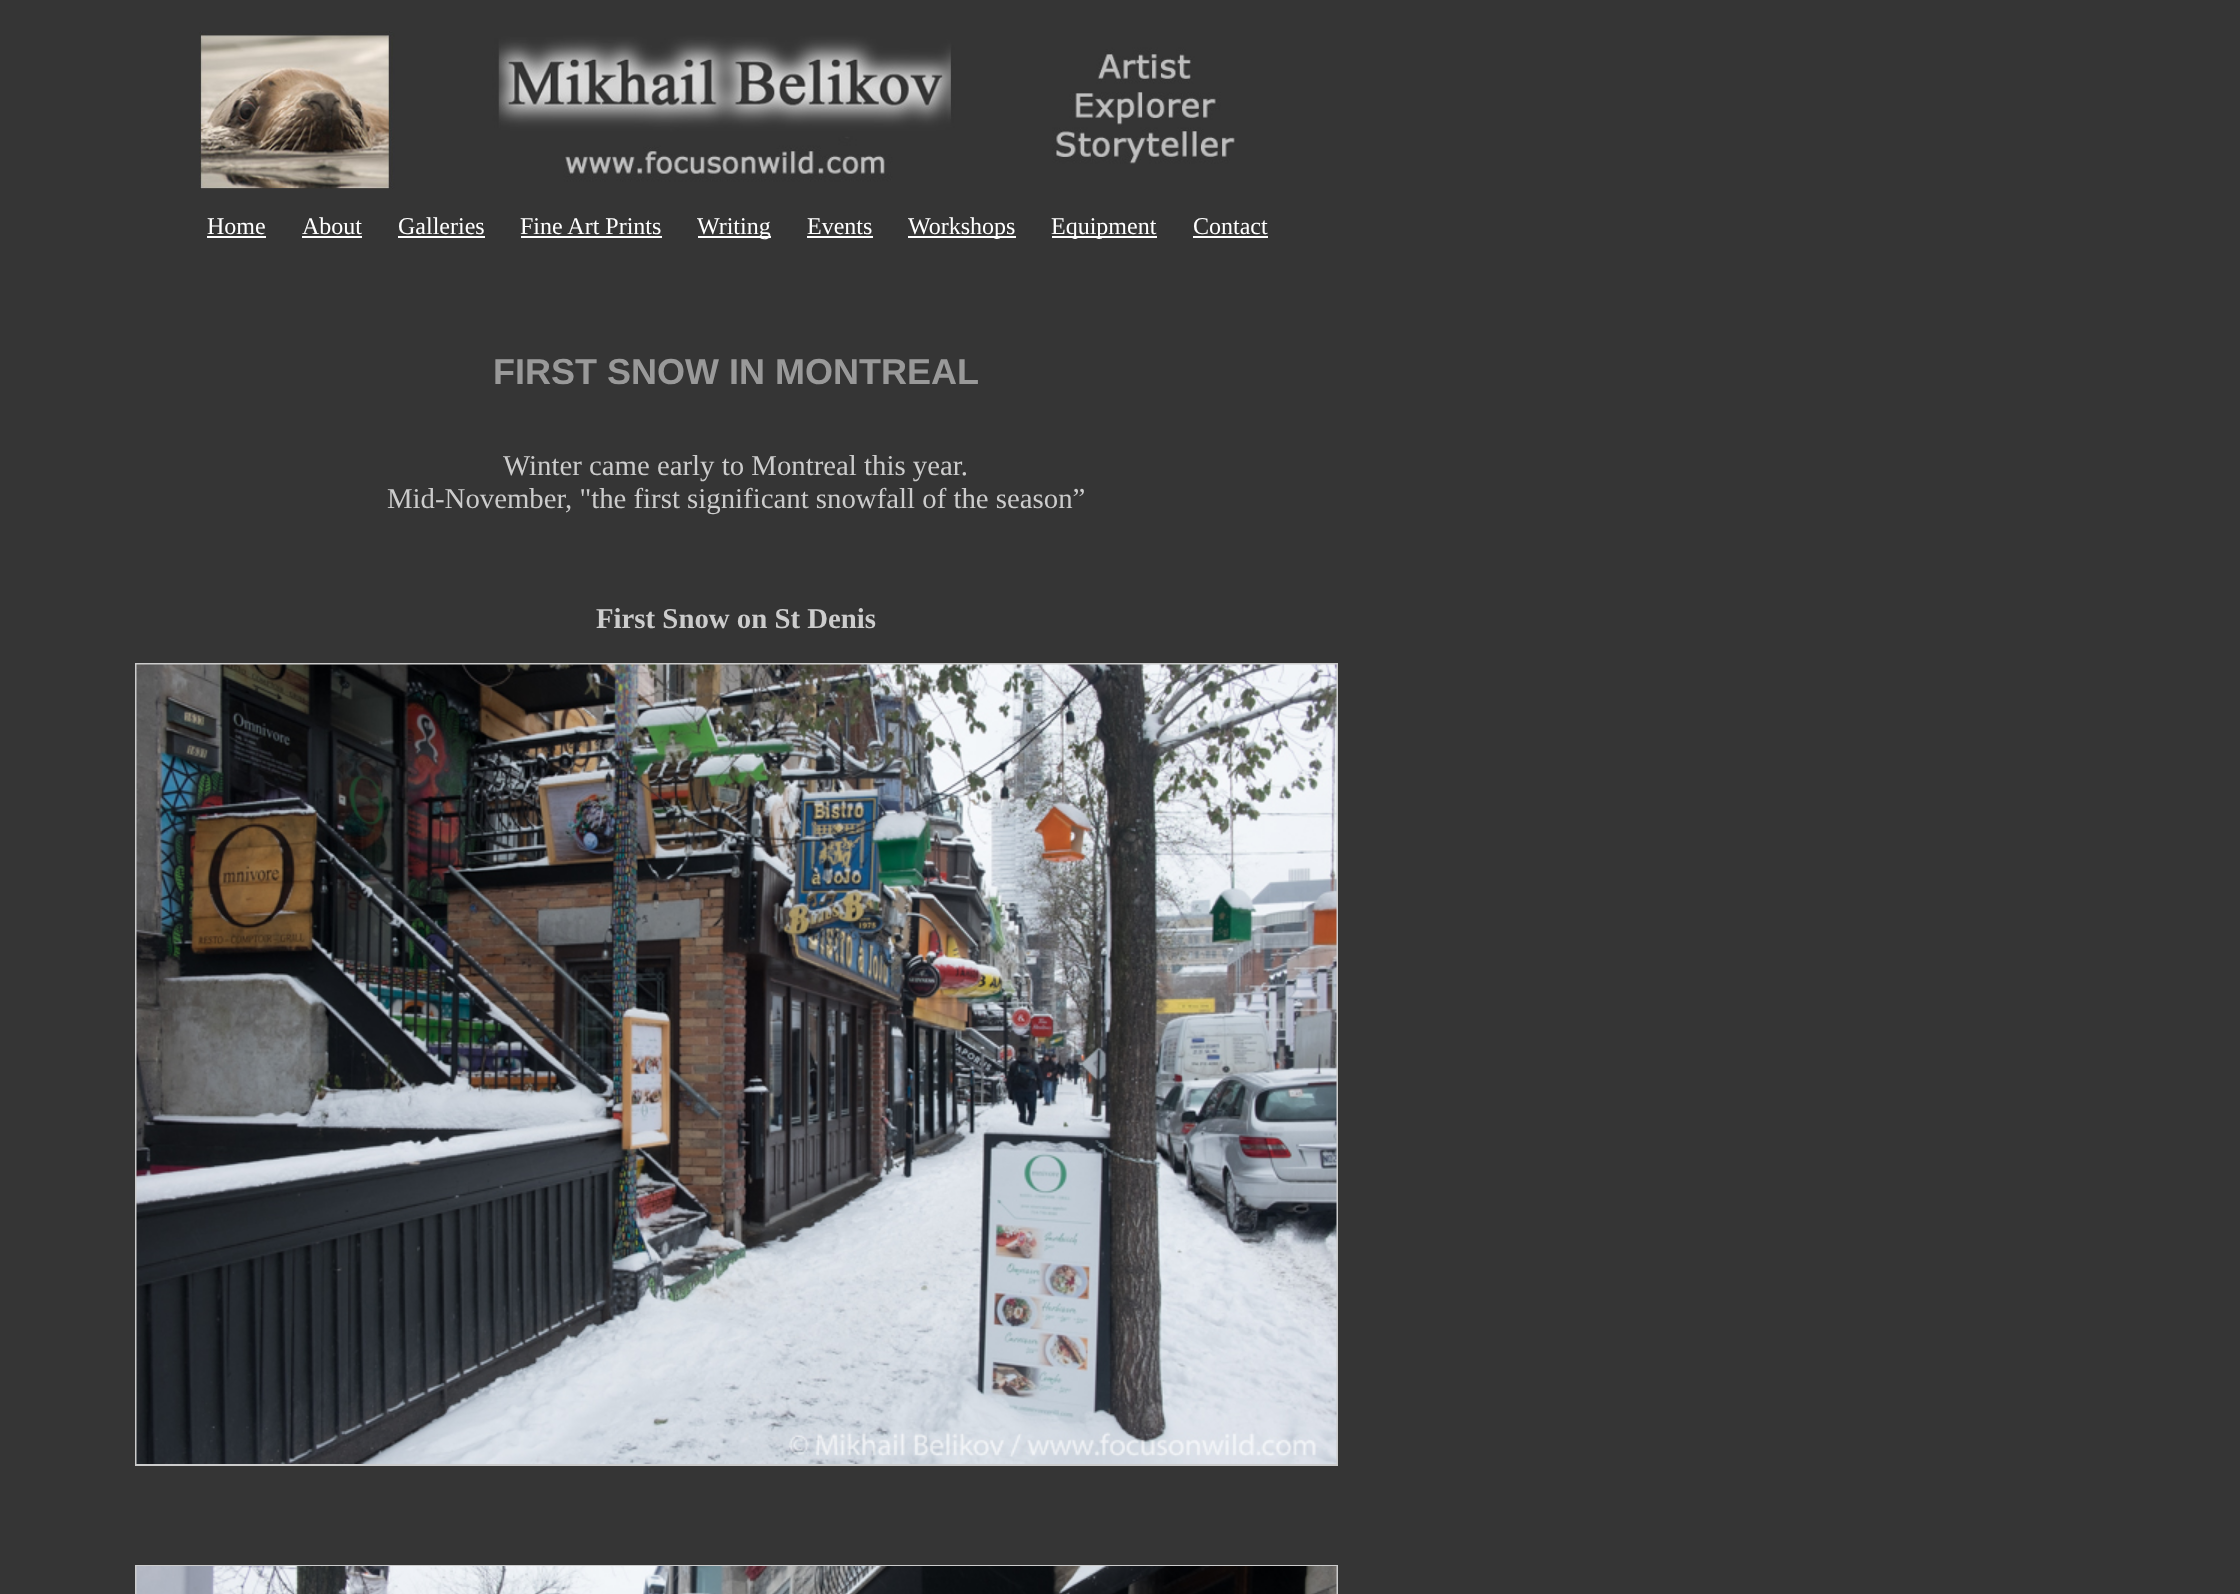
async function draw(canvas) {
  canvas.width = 2240
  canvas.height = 1594
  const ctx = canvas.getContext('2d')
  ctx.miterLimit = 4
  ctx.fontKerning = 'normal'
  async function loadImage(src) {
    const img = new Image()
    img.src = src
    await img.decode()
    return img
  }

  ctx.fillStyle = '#353535'
  ctx.fillRect(0, 0, 2240, 1594)
  ctx.drawImage(await loadImage('image0.png'), 199, 31, 1036, 158)
  ctx.font = '24px Liberation Serif'
  ctx.fillStyle = '#fff'
  ctx.fillText('Home', 207, 234)
  ctx.fillRect(207, 236, 59, 2)
  ctx.fillText('About', 302, 234)
  ctx.fillRect(302, 236, 60, 2)
  ctx.fillText('Galleries', 398, 234)
  ctx.fillRect(398, 236, 87, 2)
  ctx.fillText('Fine Art Prints', 520, 234)
  ctx.fillRect(521, 236, 141, 2)
  ctx.fillRect(698, 236, 73, 2)
  ctx.fillText('Writing', 697, 234)
  ctx.fillText('Events', 807, 234)
  ctx.fillRect(807, 236, 66, 2)
  ctx.fillRect(908, 236, 108, 2)
  ctx.fillText('Workshops', 908, 234)
  ctx.fillRect(1052, 236, 105, 2)
  ctx.fillText('Equipment', 1051, 234)
  ctx.fillText('Contact', 1193, 234)
  ctx.fillRect(1193, 236, 75, 2)
  ctx.font = 'bold 36px Liberation Sans'
  ctx.fillStyle = '#999'
  ctx.fillText('FIRST SNOW IN MONTREAL', 493, 384)
  ctx.font = '28.8px Liberation Serif'
  ctx.fillStyle = '#ccc'
  ctx.fillText('Winter came early to Montreal this year.', 503, 475)
  ctx.fillText('Mid-November, "the first significant snowfall of the season”', 387, 508)
  ctx.font = 'bold 28.8px Liberation Serif'
  ctx.fillText('First Snow on St Denis', 596, 628)
  ctx.strokeStyle = '#ccc'
  ctx.lineWidth = 2
  ctx.strokeRect(136, 664, 1201, 801)
  ctx.drawImage(await loadImage('image1.png'), 136, 664, 1201, 800)
  ctx.strokeRect(136, 1566, 1201, 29)
  ctx.drawImage(await loadImage('image2.png'), 136, 1566, 1201, 28)
}

draw(document.querySelector('canvas'))
